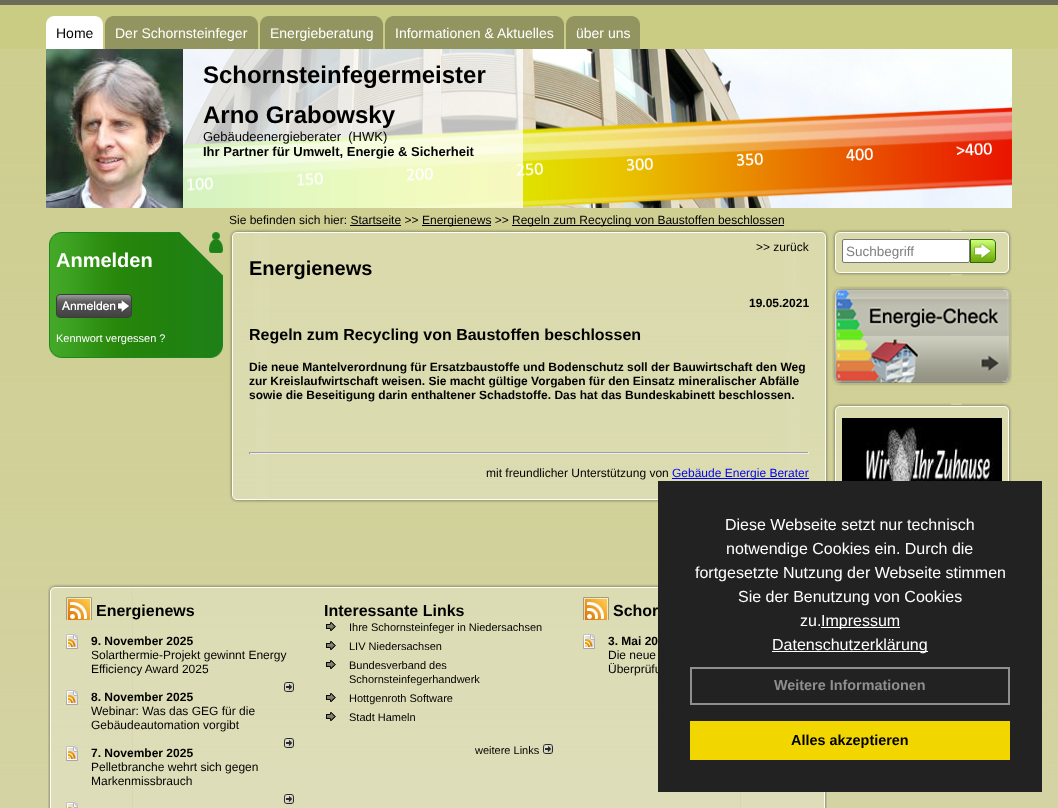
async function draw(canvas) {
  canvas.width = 1058
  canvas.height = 808
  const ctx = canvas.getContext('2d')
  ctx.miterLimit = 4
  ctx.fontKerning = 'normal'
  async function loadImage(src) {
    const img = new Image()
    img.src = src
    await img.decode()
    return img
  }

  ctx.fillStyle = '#fff'
  ctx.fillRect(0, 0, 1058, 808)
  ctx.drawImage(await loadImage('image0.png'), 0, 49, 1058, 759)
  ctx.drawImage(await loadImage('image1.png'), 0, 0, 1058, 49)
  ctx.drawImage(await loadImage('image2.png'), 46, 16, 10, 33)
  ctx.fillRect(56, 16, 37, 33)
  ctx.font = '14px Liberation Sans'
  ctx.fillStyle = '#000'
  ctx.fillText('Home', 56, 38)
  ctx.drawImage(await loadImage('image3.png'), 93, 16, 10, 33)
  ctx.drawImage(await loadImage('image4.png'), 105, 16, 10, 33)
  ctx.fillStyle = '#939560'
  ctx.fillRect(115, 16, 133, 33)
  ctx.fillStyle = '#fff'
  ctx.fillText('Der Schornsteinfeger', 115, 38)
  ctx.drawImage(await loadImage('image5.png'), 248, 16, 10, 33)
  ctx.drawImage(await loadImage('image4.png'), 260, 16, 10, 33)
  ctx.fillStyle = '#939560'
  ctx.fillRect(270, 16, 103, 33)
  ctx.fillStyle = '#fff'
  ctx.fillText('Energieberatung', 270, 38)
  ctx.drawImage(await loadImage('image5.png'), 373, 16, 10, 33)
  ctx.drawImage(await loadImage('image4.png'), 385, 16, 10, 33)
  ctx.fillStyle = '#939560'
  ctx.fillRect(395, 16, 159, 33)
  ctx.fillStyle = '#fff'
  ctx.fillText('Informationen & Aktuelles', 395, 38)
  ctx.drawImage(await loadImage('image5.png'), 554, 16, 10, 33)
  ctx.drawImage(await loadImage('image4.png'), 566, 16, 10, 33)
  ctx.fillStyle = '#939560'
  ctx.fillRect(576, 16, 54, 33)
  ctx.fillStyle = '#fff'
  ctx.fillText('über uns', 576, 38)
  ctx.drawImage(await loadImage('image5.png'), 630, 16, 10, 33)
  ctx.drawImage(await loadImage('image6.png'), 183, 49, 829, 159)
  ctx.drawImage(await loadImage('image7.png'), 46, 49, 137, 159)
  ctx.fillStyle = '#ffffffbf'
  ctx.fillRect(183, 49, 340, 159)
  ctx.font = 'bold 24px Liberation Sans'
  ctx.fillStyle = '#000'
  ctx.fillText('Schornsteinfegermeister', 203, 83)
  ctx.fillText('Arno Grabowsky', 203, 123)
  ctx.font = '13px Liberation Sans'
  ctx.fillText('Gebäudeenergieberater  (HWK)', 203, 141)
  ctx.font = 'bold 13px Liberation Sans'
  ctx.fillText('Ihr Partner für Umwelt, Energie & Sicherheit', 203, 156)
  ctx.font = '12px Liberation Sans'
  ctx.fillText('Sie befinden sich hier: Startseite >>', 229, 224)
  ctx.fillRect(422, 225, 69, 1)
  ctx.fillText('Energienews >>', 422, 224)
  ctx.fillRect(512, 225, 272, 1)
  ctx.fillText('Regeln zum Recycling von Baustoffen beschlossen', 512, 224)
  ctx.fillRect(350, 225, 51, 1)
  ctx.drawImage(await loadImage('image8.png'), 49, 232, 174, 45)
  ctx.font = 'bold 20px Liberation Sans'
  ctx.fillStyle = '#fff'
  ctx.fillText('Anmelden', 56, 267)
  ctx.drawImage(await loadImage('image9.png'), 49, 277, 174, 67)
  ctx.drawImage(await loadImage('image10.png'), 56, 294, 76, 24)
  ctx.drawImage(await loadImage('image11.png'), 49, 344, 174, 14)
  ctx.font = '11px Liberation Sans'
  ctx.fillText('Kennwort vergessen ?', 56, 342)
  ctx.drawImage(await loadImage('image12.png'), 229, 229, 600, 10)
  ctx.drawImage(await loadImage('image13.png'), 229, 239, 600, 254)
  ctx.font = '12px Liberation Sans'
  ctx.fillStyle = '#000'
  ctx.fillText('>> zurück', 756, 251)
  ctx.font = 'bold 20px Liberation Sans'
  ctx.fillText('Energienews', 249, 275)
  ctx.font = 'bold 12px Liberation Sans'
  ctx.fillText('19.05.2021', 749, 307)
  ctx.font = 'bold 16px Liberation Sans'
  ctx.fillText('Regeln zum Recycling von Baustoffen beschlossen', 249, 340)
  ctx.font = 'bold 12px Liberation Sans'
  ctx.fillText('Die neue Mantelverordnung für Ersatzbaustoffe und Bodenschutz soll der Bauwirtschaft den Weg', 249, 371)
  ctx.fillText('zur Kreislaufwirtschaft weisen. Sie macht gültige Vorgaben für den Einsatz mineralischer Abfälle', 249, 385)
  ctx.fillText('sowie die Beseitigung darin enthaltener Schadstoffe. Das hat das Bundeskabinett beschlossen.', 249, 399)
  ctx.fillStyle = '#9f9f9f'
  ctx.fillRect(249, 452, 560, 1)
  ctx.fillStyle = '#eee'
  ctx.fillRect(808, 452, 1, 2)
  ctx.fillRect(249, 453, 560, 1)
  ctx.fillStyle = '#9f9f9f'
  ctx.fillRect(249, 452, 1, 2)
  ctx.font = '12px Liberation Sans'
  ctx.fillStyle = '#000'
  ctx.fillText('mit freundlicher Unterstützung von', 486, 477)
  ctx.fillStyle = '#00e'
  ctx.fillRect(672, 478, 137, 1)
  ctx.fillText('Gebäude Energie Berater', 672, 477)
  ctx.drawImage(await loadImage('image14.png'), 229, 493, 429, 10)
  ctx.drawImage(await loadImage('image15.png'), 832, 229, 180, 10)
  ctx.drawImage(await loadImage('image16.png'), 832, 239, 180, 27)
  ctx.fillStyle = '#fff'
  ctx.beginPath()
  ctx.roundRect(842.5, 239.5, 127, 23, 1.5)
  ctx.fill()
  ctx.strokeStyle = '#767676'
  ctx.stroke()
  ctx.font = '13.5px Liberation Sans'
  ctx.fillStyle = '#808080'
  ctx.fillText('Suchbegriff', 846, 256)
  ctx.drawImage(await loadImage('image17.png'), 970, 239, 26, 24)
  ctx.drawImage(await loadImage('image18.png'), 832, 266, 180, 10)
  ctx.drawImage(await loadImage('image19.png'), 832, 286, 180, 100)
  ctx.drawImage(await loadImage('image20.png'), 832, 403, 180, 10)
  ctx.drawImage(await loadImage('image21.png'), 832, 413, 180, 68)
  ctx.drawImage(await loadImage('image22.png'), 842, 418, 160, 63)
  ctx.drawImage(await loadImage('image23.png'), 48, 584, 610, 13)
  ctx.drawImage(await loadImage('image24.png'), 48, 597, 779, 211)
  ctx.drawImage(await loadImage('image25.png'), 66, 597, 26, 23)
  ctx.font = 'bold 16px Liberation Sans'
  ctx.fillStyle = '#000'
  ctx.fillText('Energienews', 96, 616)
  ctx.drawImage(await loadImage('image26.png'), 66, 634, 12, 15)
  ctx.font = 'bold 12px Liberation Sans'
  ctx.fillText('9. November 2025', 91, 645)
  ctx.font = '12px Liberation Sans'
  ctx.fillText('Solarthermie-Projekt gewinnt Energy', 91, 659)
  ctx.fillText('Efficiency Award 2025', 91, 673)
  ctx.drawImage(await loadImage('image27.png'), 284, 682, 10, 10)
  ctx.drawImage(await loadImage('image28.png'), 66, 690, 12, 15)
  ctx.font = 'bold 12px Liberation Sans'
  ctx.fillText('8. November 2025', 91, 701)
  ctx.font = '12px Liberation Sans'
  ctx.fillText('Webinar: Was das GEG für die', 91, 715)
  ctx.fillText('Gebäudeautomation vorgibt', 91, 729)
  ctx.drawImage(await loadImage('image29.png'), 284, 738, 10, 10)
  ctx.drawImage(await loadImage('image30.png'), 66, 746, 12, 15)
  ctx.font = 'bold 12px Liberation Sans'
  ctx.fillText('7. November 2025', 91, 757)
  ctx.font = '12px Liberation Sans'
  ctx.fillText('Pelletbranche wehrt sich gegen', 91, 771)
  ctx.fillText('Markenmissbrauch', 91, 785)
  ctx.drawImage(await loadImage('image31.png'), 284, 794, 10, 10)
  ctx.drawImage(await loadImage('image32.png'), 66, 802, 12, 6)
  ctx.font = 'bold 16px Liberation Sans'
  ctx.fillText('Interessante Links', 324, 616)
  ctx.drawImage(await loadImage('image33.png'), 326, 622, 10, 9)
  ctx.font = '11px Liberation Sans'
  ctx.fillText('Ihre Schornsteinfeger in Niedersachsen', 349, 631)
  ctx.drawImage(await loadImage('image34.png'), 326, 641, 10, 9)
  ctx.fillText('LIV Niedersachsen', 349, 650)
  ctx.drawImage(await loadImage('image35.png'), 326, 660, 10, 9)
  ctx.fillText('Bundesverband des', 349, 669)
  ctx.fillText('Schornsteinfegerhandwerk', 349, 683)
  ctx.drawImage(await loadImage('image36.png'), 326, 693, 10, 9)
  ctx.fillText('Hottgenroth Software', 349, 702)
  ctx.drawImage(await loadImage('image37.png'), 326, 712, 10, 9)
  ctx.fillText('Stadt Hameln', 349, 721)
  ctx.fillText('weitere Links', 475, 754)
  ctx.drawImage(await loadImage('image38.png'), 543, 744, 10, 10)
  ctx.drawImage(await loadImage('image25.png'), 583, 597, 26, 23)
  ctx.font = 'bold 16px Liberation Sans'
  ctx.fillText('Schor', 613, 616)
  ctx.drawImage(await loadImage('image26.png'), 583, 634, 12, 15)
  ctx.font = 'bold 12px Liberation Sans'
  ctx.fillText('3. Mai 20', 608, 645)
  ctx.font = '12px Liberation Sans'
  ctx.fillText('Die neue', 608, 659)
  ctx.fillText('Überprüfu', 608, 673)
  ctx.fillStyle = '#222'
  ctx.fillRect(658, 481, 384, 311)
  ctx.font = '16px Liberation Sans'
  ctx.fillStyle = '#fff'
  ctx.fillText('Diese Webseite setzt nur technisch', 725, 530)
  ctx.fillText('notwendige Cookies ein. Durch die', 726, 554)
  ctx.fillText('fortgesetzte Nutzung der Webseite stimmen', 695, 578)
  ctx.fillText('Sie der Benutzung von Cookies', 738, 602)
  ctx.fillText('zu.', 800, 626)
  ctx.fillRect(821, 627, 79, 1)
  ctx.fillText('Impressum', 821, 626)
  ctx.fillRect(772, 651, 156, 1)
  ctx.fillText('Datenschutzerklärung', 772, 650)
  ctx.strokeStyle = '#8f8f8f'
  ctx.lineWidth = 2
  ctx.strokeRect(691, 668, 318, 36)
  ctx.font = 'bold 14.4px Liberation Sans'
  ctx.fillStyle = '#8f8f8f'
  ctx.fillText('Weitere Informationen', 774, 690)
  ctx.fillStyle = '#f1d600'
  ctx.fillRect(690, 721, 320, 39)
  ctx.fillStyle = '#000'
  ctx.fillText('Alles akzeptieren', 791, 745)
}

draw(document.querySelector('canvas'))
